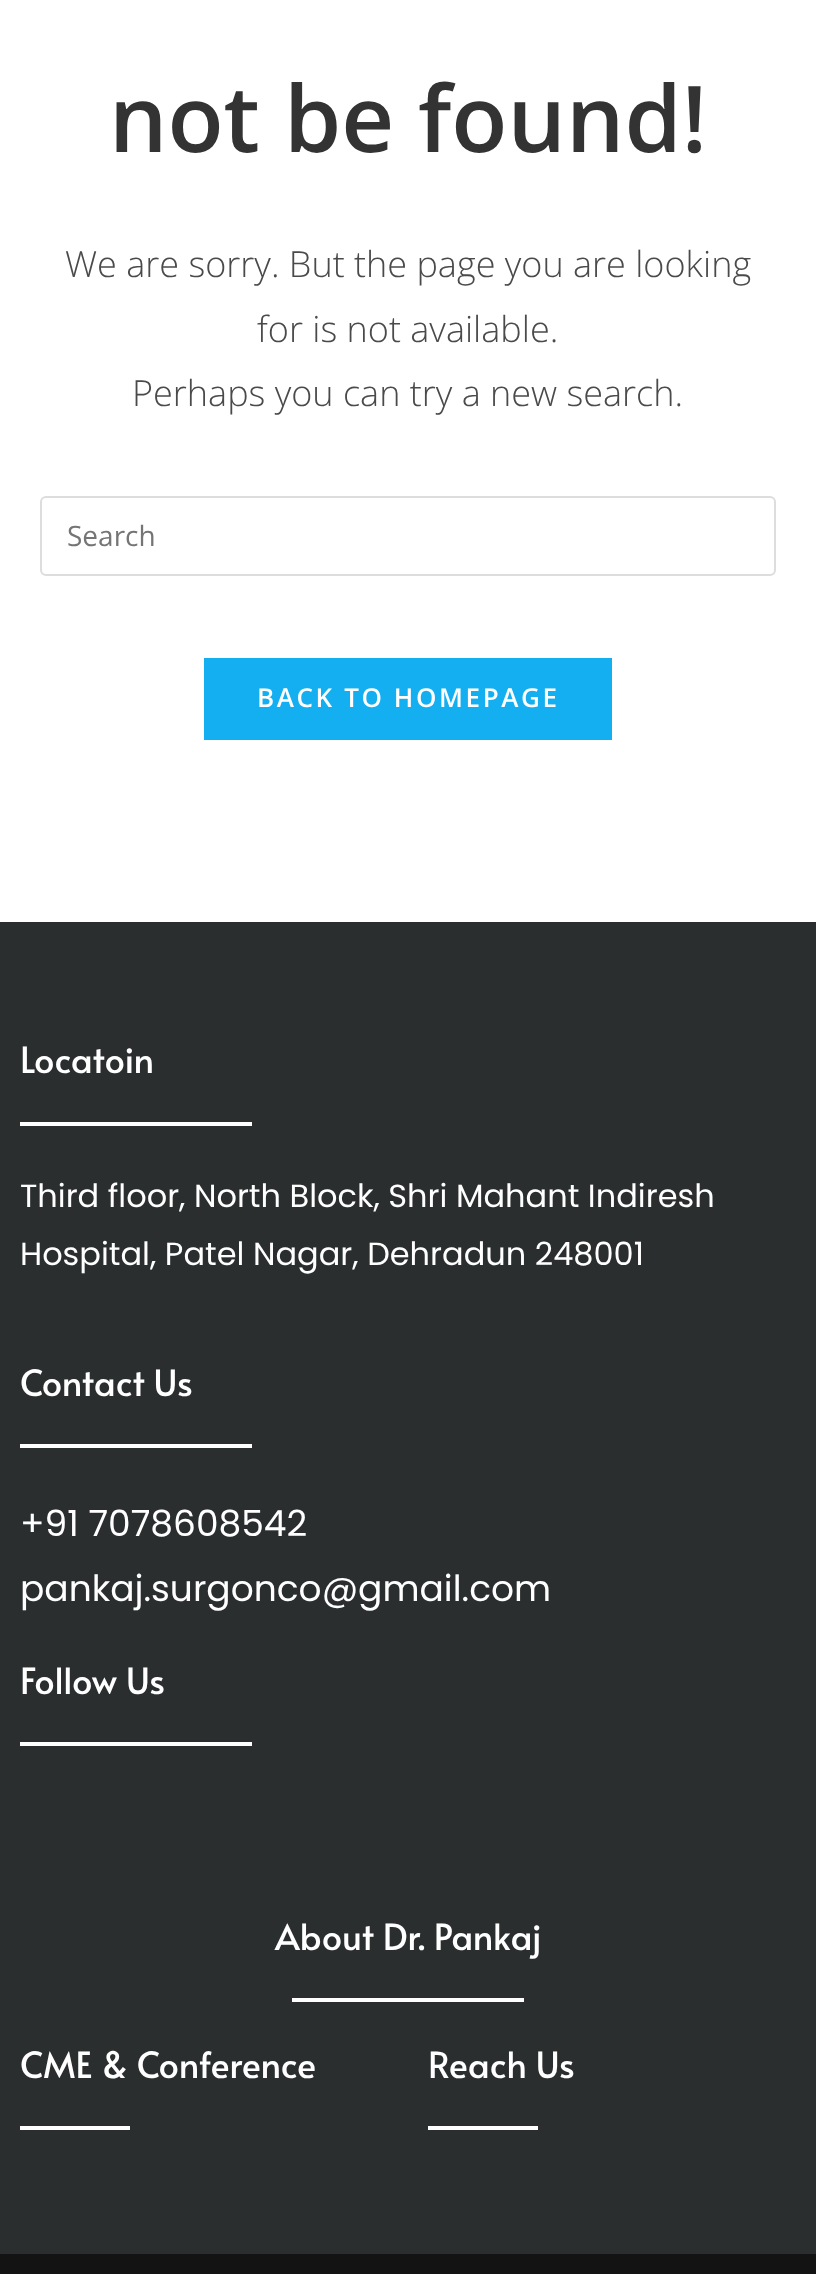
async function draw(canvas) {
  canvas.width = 816
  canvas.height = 2274
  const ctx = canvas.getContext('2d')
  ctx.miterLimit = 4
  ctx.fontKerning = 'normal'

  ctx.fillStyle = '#fff'
  ctx.fillRect(0, 0, 816, 2274)
  ctx.font = '600 92px Open Sans'
  ctx.fillStyle = '#333'
  ctx.fillText('not be found!', 109, 152)
  ctx.font = '300 36px Open Sans'
  ctx.fillStyle = '#4a4a4a'
  ctx.fillText('We are sorry. But the page you are looking', 65, 277)
  ctx.fillText('for is not available.', 257, 342)
  ctx.fillText('Perhaps you can try a new search.', 132, 406)
  ctx.beginPath()
  ctx.roundRect(41, 497, 734, 78, 5)
  ctx.strokeStyle = '#ddd'
  ctx.lineWidth = 2
  ctx.stroke()
  ctx.font = '28px Open Sans'
  ctx.fillStyle = '#757575'
  ctx.fillText('Search', 67, 546)
  ctx.fillStyle = '#13aff0'
  ctx.fillRect(204, 658, 408, 82)
  ctx.letterSpacing = '2.6px'
  ctx.font = '600 26px Open Sans'
  ctx.fillStyle = '#fff'
  ctx.fillText('BACK TO HOMEPAGE', 257, 707)
  ctx.fillStyle = '#2a2e2f'
  ctx.fillRect(0, 922, 816, 1332)
  ctx.letterSpacing = '0px'
  ctx.font = '36px Alata'
  ctx.fillStyle = '#fff'
  ctx.fillText('Locatoin', 20, 1073)
  ctx.fillRect(20, 1122, 232, 4)
  ctx.font = '32px Poppins'
  ctx.fillText('Third floor, North Block, Shri Mahant Indiresh', 20, 1207)
  ctx.fillText('Hospital, Patel Nagar, Dehradun 248001', 20, 1265)
  ctx.font = '36px Alata'
  ctx.fillText('Contact Us', 20, 1396)
  ctx.fillRect(20, 1444, 232, 4)
  ctx.font = '36px Poppins'
  ctx.fillText('+91 7078608542', 20, 1536)
  ctx.fillText('pankaj.surgonco@gmail.com', 20, 1601)
  ctx.font = '36px Alata'
  ctx.fillText('Follow Us', 20, 1694)
  ctx.fillRect(20, 1742, 232, 4)
  ctx.fillText('About Dr. Pankaj', 275, 1950)
  ctx.fillRect(292, 1998, 232, 4)
  ctx.fillText('CME & Conference', 20, 2078)
  ctx.fillRect(20, 2126, 110, 4)
  ctx.fillText('Reach Us', 428, 2078)
  ctx.fillRect(428, 2126, 110, 4)
  ctx.fillStyle = '#131313'
  ctx.fillRect(0, 2254, 816, 20)
}

draw(document.querySelector('canvas'))
